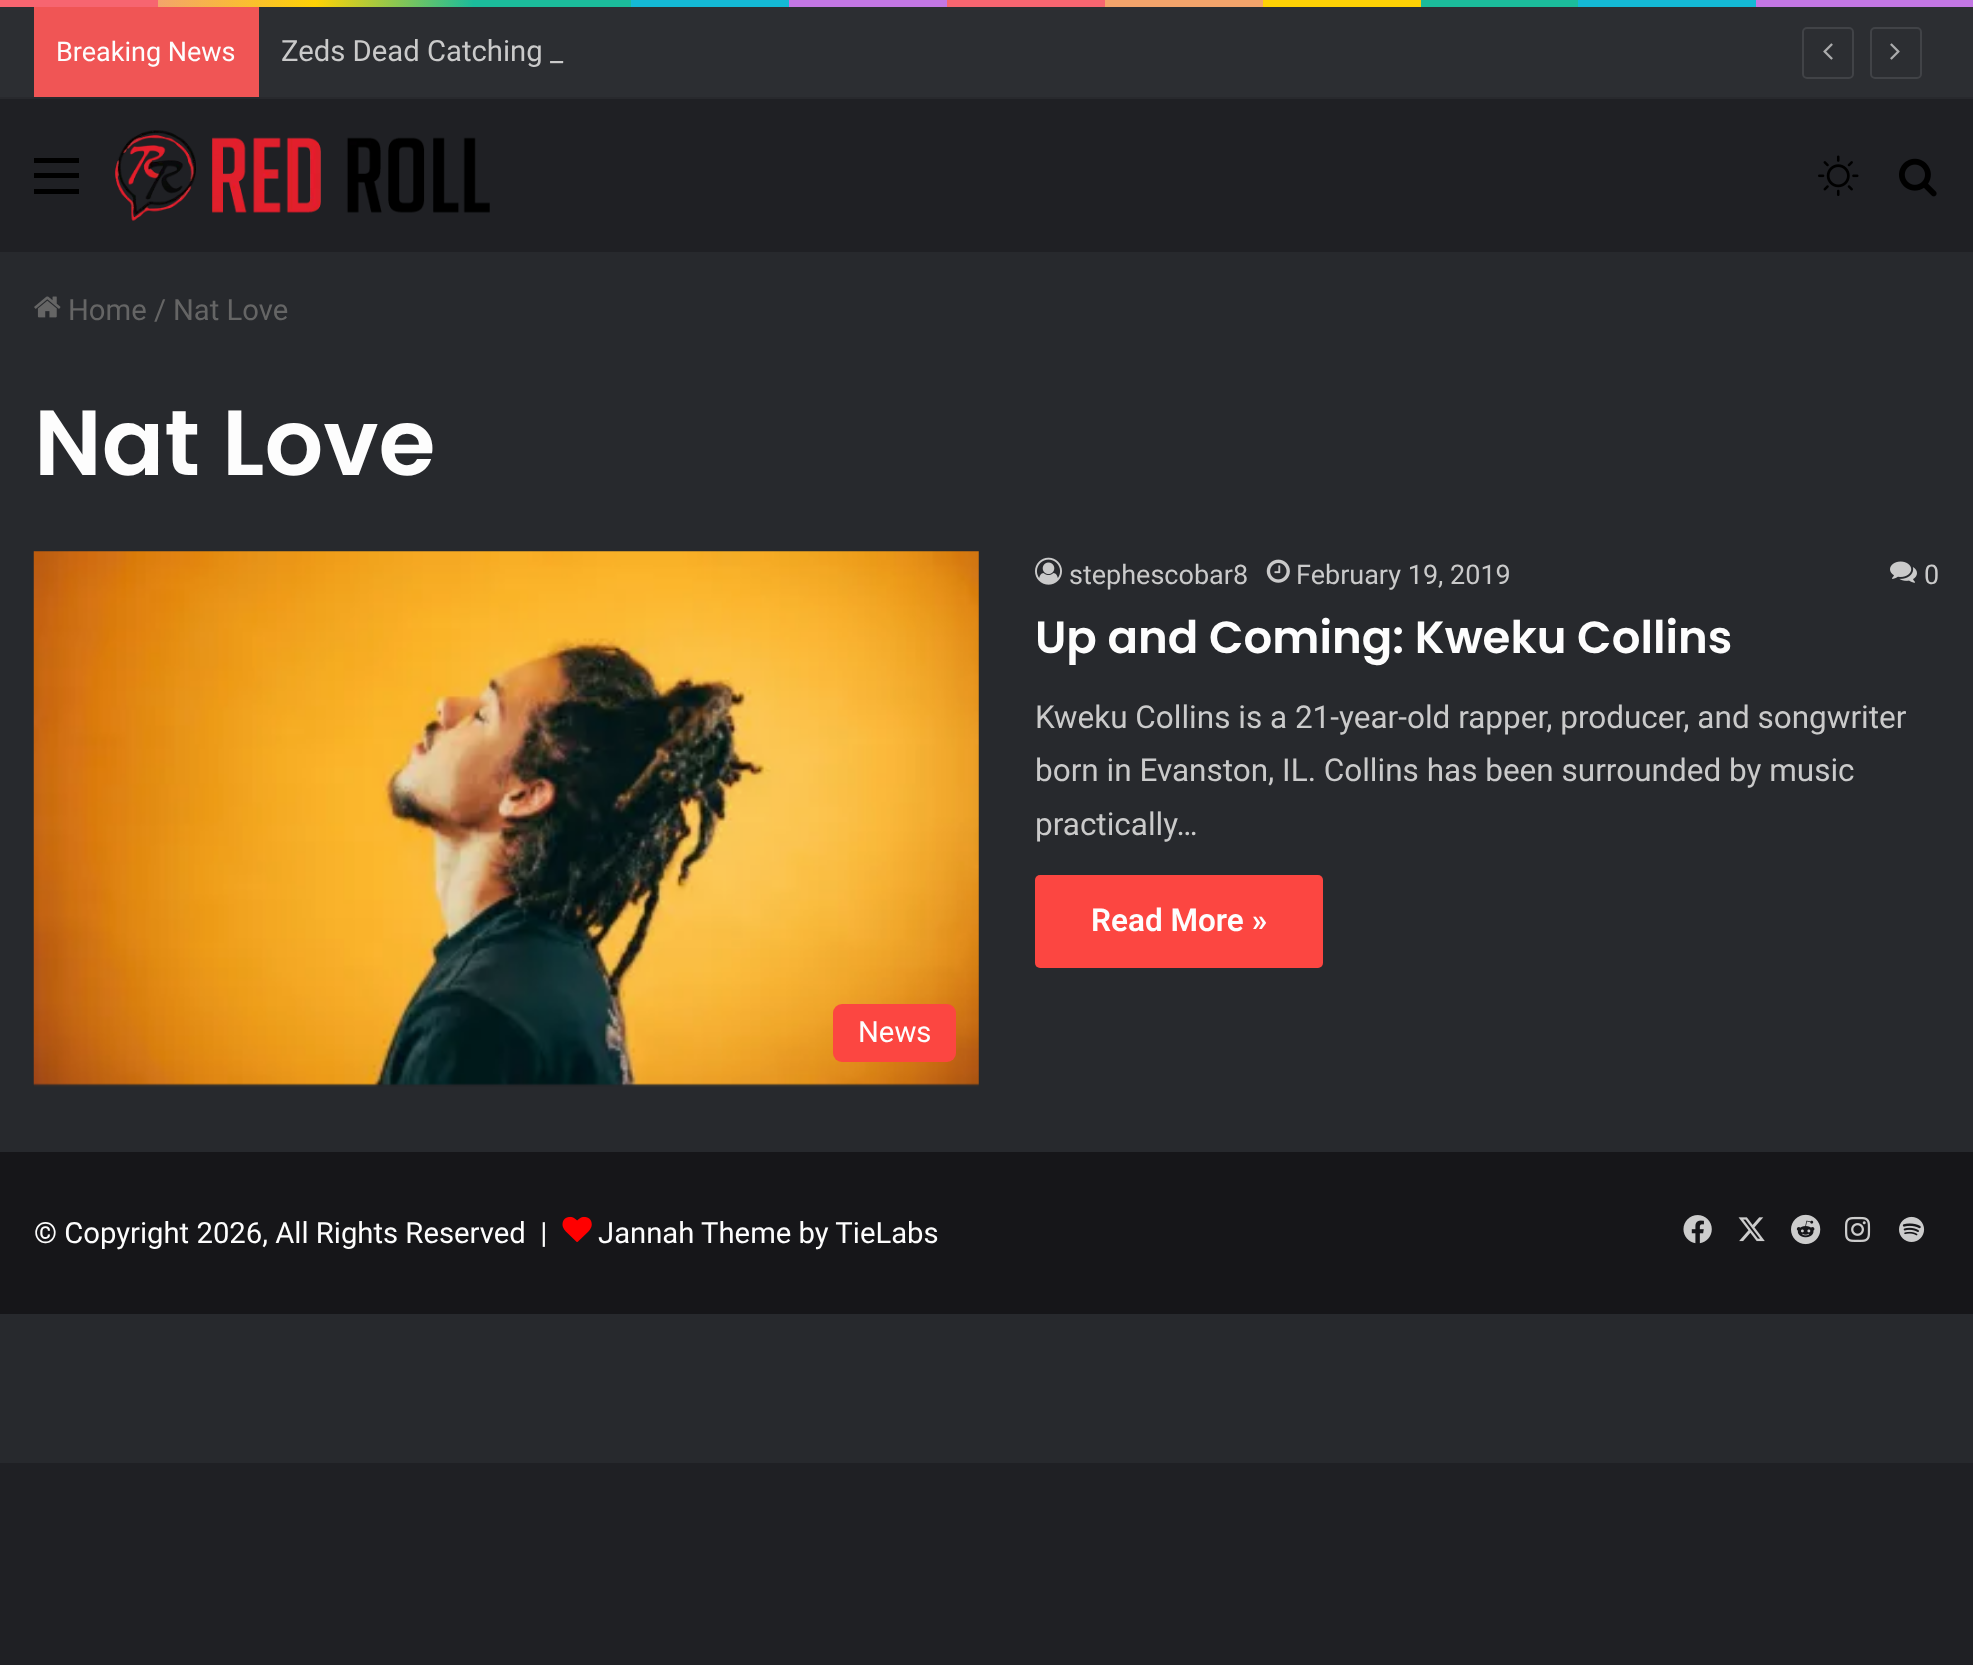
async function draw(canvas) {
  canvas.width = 1973
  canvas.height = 1665
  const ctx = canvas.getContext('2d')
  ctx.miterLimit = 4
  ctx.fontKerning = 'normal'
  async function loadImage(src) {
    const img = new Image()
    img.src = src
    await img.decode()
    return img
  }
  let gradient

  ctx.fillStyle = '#1f2024'
  ctx.fillRect(0, 0, 1973, 1665)
  ctx.fillStyle = '#27292d'
  ctx.fillRect(0, 252, 1973, 1211)
  gradient = ctx.createLinearGradient(0, 3.4, 1973, 3.4)
  gradient.addColorStop(0, '#f76570')
  gradient.addColorStop(0.08, '#f76570')
  gradient.addColorStop(0.08, '#f3a46b')
  gradient.addColorStop(0.16, '#ffd205')
  gradient.addColorStop(0.24, '#1bbc9b')
  gradient.addColorStop(0.32, '#1bbc9b')
  gradient.addColorStop(0.32, '#14b9d5')
  gradient.addColorStop(0.4, '#14b9d5')
  gradient.addColorStop(0.4, '#c377e4')
  gradient.addColorStop(0.48, '#c377e4')
  gradient.addColorStop(0.48, '#f76570')
  gradient.addColorStop(0.56, '#f76570')
  gradient.addColorStop(0.56, '#f3a46b')
  gradient.addColorStop(0.64, '#f3a46b')
  gradient.addColorStop(0.64, '#ffd205')
  gradient.addColorStop(0.72, '#ffd205')
  gradient.addColorStop(0.72, '#1bbc9b')
  gradient.addColorStop(0.8, '#1bbc9b')
  gradient.addColorStop(0.8, '#14b9d5')
  gradient.addColorStop(0.89, '#14b9d5')
  gradient.addColorStop(0.89, '#c377e4')
  gradient.addColorStop(1, '#c377e4')
  ctx.fillStyle = gradient
  ctx.fillRect(0, 0, 1973, 7)
  ctx.fillStyle = '#2c2e32'
  ctx.fillRect(0, 7, 1973, 90)
  ctx.fillStyle = '#28292d'
  ctx.fillRect(0, 97, 1973, 2)
  ctx.fillStyle = '#f05555'
  ctx.fillRect(34, 7, 225, 90)
  ctx.font = '27px Roboto'
  ctx.fillStyle = '#fdfdfd'
  ctx.fillText('Breaking News', 56, 61)
  ctx.font = '29.25px Roboto'
  ctx.fillStyle = '#cacaca'
  ctx.fillText('Zeds Dead Catching', 281, 61)
  ctx.fillText('_', 550, 61)
  ctx.beginPath()
  ctx.roundRect(1803, 28, 50, 50, 4)
  ctx.strokeStyle = '#414347'
  ctx.lineWidth = 2
  ctx.stroke()
  ctx.drawImage(await loadImage('image0.png'), 1823, 43, 10, 17)
  ctx.beginPath()
  ctx.roundRect(1871, 28, 50, 50, 4)
  ctx.stroke()
  ctx.drawImage(await loadImage('image1.png'), 1890, 43, 10, 17)
  ctx.fillStyle = '#000'
  ctx.fillRect(34, 173, 45, 5)
  ctx.fillRect(34, 158, 45, 5)
  ctx.fillRect(34, 189, 45, 5)
  ctx.drawImage(await loadImage('image2.png'), 115, 130, 375, 91)
  ctx.drawImage(await loadImage('image3.png'), 1818, 155, 41, 41)
  ctx.drawImage(await loadImage('image4.png'), 1899, 158, 38, 39)
  ctx.drawImage(await loadImage('image5.png'), 34, 296, 27, 22)
  ctx.fillStyle = '#656565'
  ctx.fillText('Home', 68, 320)
  ctx.fillText('/', 154, 320)
  ctx.fillText('Nat Love', 173, 320)
  ctx.font = '600 92.25px Poppins'
  ctx.fillStyle = '#fdfdfd'
  ctx.fillText('Nat Love', 34, 475)
  ctx.drawImage(await loadImage('image6.png'), 1035, 557, 27, 28)
  ctx.font = '27px Roboto'
  ctx.fillStyle = '#cacaca'
  ctx.fillText('stephescobar8', 1069, 584)
  ctx.drawImage(await loadImage('image7.png'), 1266, 559, 24, 24)
  ctx.fillText('February 19, 2019', 1296, 584)
  ctx.drawImage(await loadImage('image8.png'), 1890, 561, 27, 22)
  ctx.fillText('0', 1924, 584)
  ctx.font = '600 45px Poppins'
  ctx.fillStyle = '#fdfdfd'
  ctx.fillText('Up and Coming: Kweku Collins', 1035, 653)
  ctx.font = '31.5px Roboto'
  ctx.fillStyle = '#cacaca'
  ctx.fillText('Kweku Collins is a 21-year-old rapper, producer, and songwriter', 1035, 728)
  ctx.fillText('born in Evanston, IL. Collins has been surrounded by music', 1035, 781)
  ctx.fillText('practically…', 1035, 835)
  ctx.fillStyle = '#fc4641'
  ctx.beginPath()
  ctx.roundRect(1035, 875, 288, 93, 5)
  ctx.fill()
  ctx.font = '600 31.5px Roboto'
  ctx.fillStyle = '#fdfdfd'
  ctx.fillText('Read More »', 1091, 931)
  ctx.drawImage(await loadImage('image9.png'), 33, 551, 946, 536)
  ctx.fillStyle = '#fc4641'
  ctx.beginPath()
  ctx.roundRect(833, 1004, 123, 58, 9)
  ctx.fill()
  ctx.font = '29.25px Roboto'
  ctx.fillStyle = '#fdfdfd'
  ctx.fillText('News', 858, 1042)
  ctx.fillStyle = '#161619'
  ctx.fillRect(0, 1152, 1973, 162)
  ctx.fillStyle = '#fdfdfd'
  ctx.fillText('© Copyright 2026, All Rights Reserved  |', 34, 1243)
  ctx.drawImage(await loadImage('image10.png'), 562, 1216, 30, 26)
  ctx.fillText('Jannah Theme by TieLabs', 598, 1243)
  ctx.drawImage(await loadImage('image11.png'), 1683, 1215, 29, 29)
  ctx.drawImage(await loadImage('image12.png'), 1738, 1217, 27, 25)
  ctx.drawImage(await loadImage('image13.png'), 1791, 1214, 30, 31)
  ctx.drawImage(await loadImage('image14.png'), 1845, 1216, 26, 26)
  ctx.drawImage(await loadImage('image15.png'), 1899, 1216, 26, 26)
}

draw(document.querySelector('canvas'))
